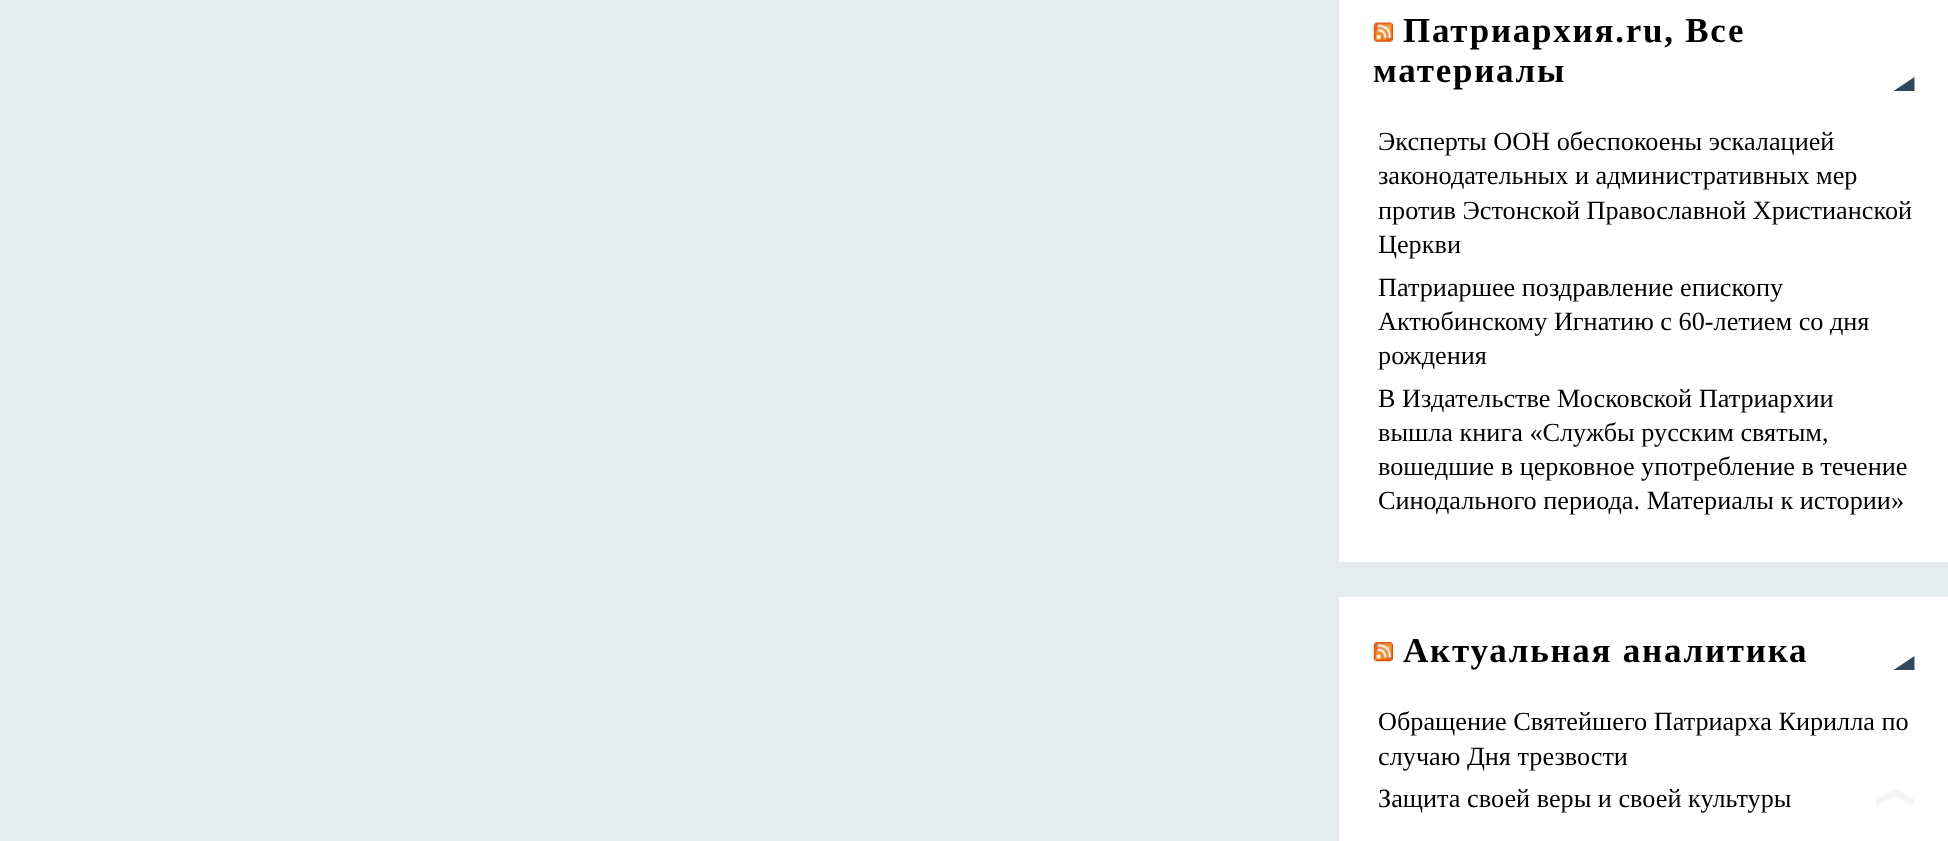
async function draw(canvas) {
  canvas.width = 1948
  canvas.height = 841
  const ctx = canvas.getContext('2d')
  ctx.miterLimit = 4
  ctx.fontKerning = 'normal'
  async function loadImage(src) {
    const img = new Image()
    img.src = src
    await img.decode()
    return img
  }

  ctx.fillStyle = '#e6ebee'
  ctx.fillRect(0, 0, 1948, 841)
  ctx.fillStyle = '#fff'
  ctx.fillRect(1339, 0, 609, 562)
  ctx.drawImage(await loadImage('image0.png'), 1373, 22, 20, 20)
  ctx.letterSpacing = '1.75px'
  ctx.font = 'bold 35px Liberation Serif'
  ctx.fillStyle = '#000'
  ctx.fillText('Патриархия.ru, Все', 1403, 42)
  ctx.fillText('материалы', 1373, 82)
  ctx.fillStyle = '#31475e'
  ctx.beginPath()
  ctx.moveTo(1914.5, 91)
  ctx.lineTo(1893.5, 91)
  ctx.lineTo(1914.5, 77)
  ctx.closePath()
  ctx.fill()
  ctx.letterSpacing = '0px'
  ctx.font = '26.25px Liberation Serif'
  ctx.fillStyle = '#000'
  ctx.fillText('Эксперты ООН обеспокоены эскалацией', 1378, 150)
  ctx.fillText('законодательных и административных мер', 1378, 184)
  ctx.fillText('против Эстонской Православной Христианской', 1378, 219)
  ctx.fillText('Церкви', 1378, 253)
  ctx.fillText('Патриаршее поздравление епископу', 1378, 296)
  ctx.fillText('Актюбинскому Игнатию с 60-летием со дня', 1378, 330)
  ctx.fillText('рождения', 1378, 364)
  ctx.fillText('В Издательстве Московской Патриархии', 1378, 407)
  ctx.fillText('вышла книга «Службы русским святым,', 1378, 441)
  ctx.fillText('вошедшие в церковное употребление в течение', 1378, 475)
  ctx.fillText('Синодального периода. Материалы к истории»', 1378, 509)
  ctx.fillStyle = '#fff'
  ctx.fillRect(1339, 597, 609, 244)
  ctx.drawImage(await loadImage('image1.png'), 1373, 642, 20, 20)
  ctx.letterSpacing = '1.75px'
  ctx.font = 'bold 35px Liberation Serif'
  ctx.fillStyle = '#000'
  ctx.fillText('Актуальная аналитика', 1403, 662)
  ctx.fillStyle = '#31475e'
  ctx.beginPath()
  ctx.moveTo(1914.5, 670)
  ctx.lineTo(1893.5, 670)
  ctx.lineTo(1914.5, 656)
  ctx.closePath()
  ctx.fill()
  ctx.letterSpacing = '0px'
  ctx.font = '26.25px Liberation Serif'
  ctx.fillStyle = '#000'
  ctx.fillText('Обращение Святейшего Патриарха Кирилла по', 1378, 730)
  ctx.fillText('случаю Дня трезвости', 1378, 765)
  ctx.fillText('Защита своей веры и своей культуры', 1378, 807)
  ctx.drawImage(await loadImage('image2.png'), 1876, 789, 38, 17)
}

draw(document.querySelector('canvas'))
